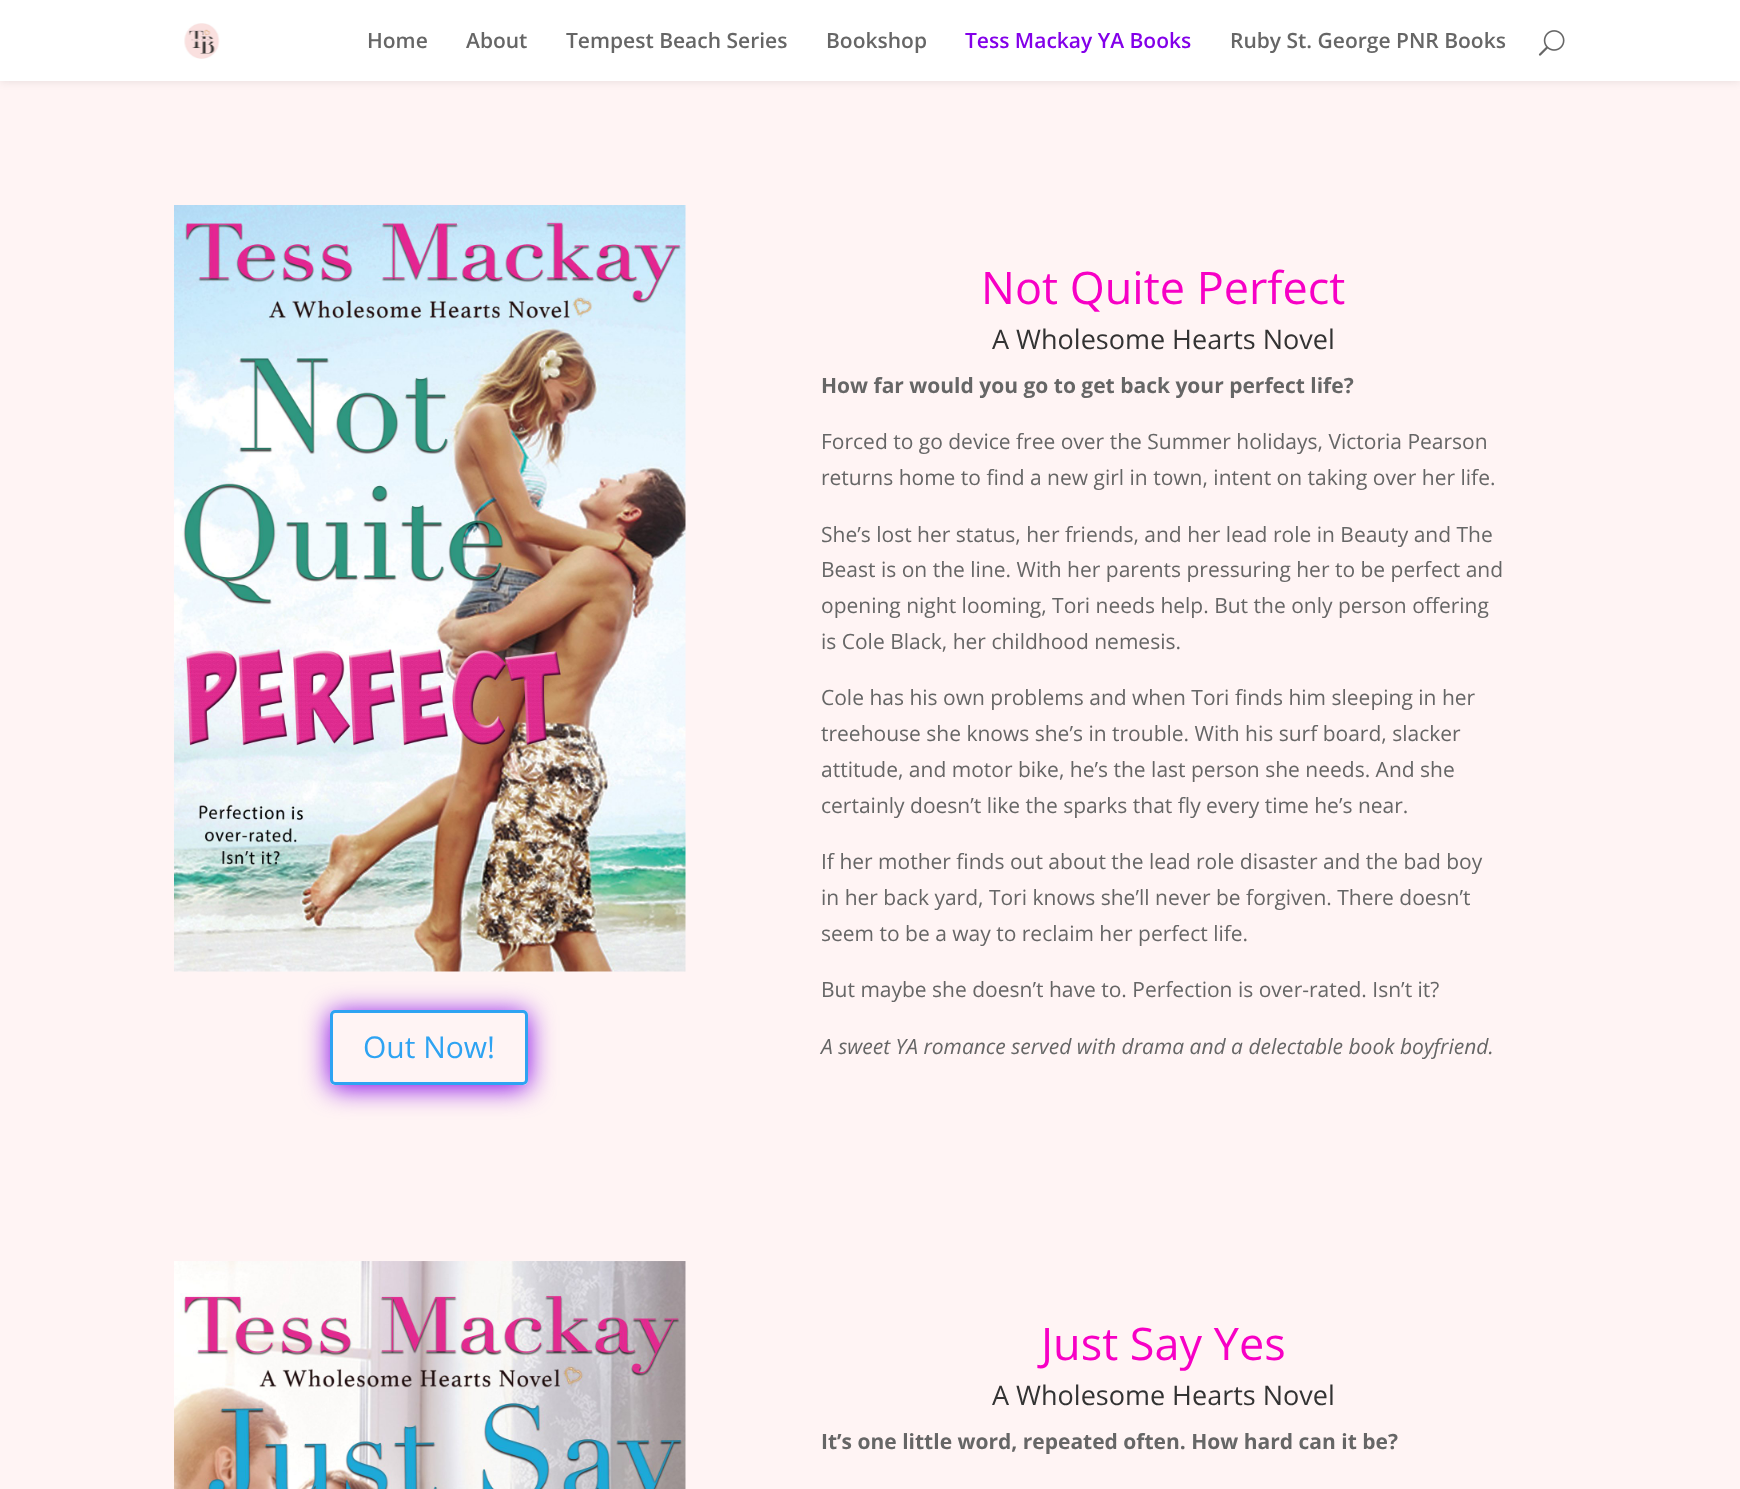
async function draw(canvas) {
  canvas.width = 1740
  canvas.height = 1489
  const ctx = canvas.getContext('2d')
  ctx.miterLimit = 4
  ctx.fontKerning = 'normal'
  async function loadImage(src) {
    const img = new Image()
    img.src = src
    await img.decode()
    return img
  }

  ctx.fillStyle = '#fff4f4'
  ctx.fillRect(0, 0, 1740, 1489)
  ctx.fillStyle = '#0000001a'
  ctx.filter = 'blur(5px)'
  ctx.beginPath()
  ctx.rect(0, 0, 1740, 81)
  ctx.fill()
  ctx.filter = 'none'
  ctx.fillStyle = '#fff'
  ctx.fillRect(0, 0, 1740, 81)
  ctx.drawImage(await loadImage('image0.png'), 184, 23, 36, 36)
  ctx.font = '600 21px Open Sans'
  ctx.fillStyle = '#666'
  ctx.fillText('Home', 367, 48)
  ctx.fillText('About', 466, 48)
  ctx.fillText('Tempest Beach Series', 566, 48)
  ctx.fillText('Bookshop', 826, 48)
  ctx.fillStyle = '#8300e9'
  ctx.fillText('Tess Mackay YA Books', 965, 48)
  ctx.fillStyle = '#666'
  ctx.fillText('Ruby St. George PNR Books', 1230, 48)
  ctx.drawImage(await loadImage('image1.png'), 1538, 30, 27, 26)
  ctx.drawImage(await loadImage('image2.png'), 174, 205, 512, 767)
  ctx.save()
  ctx.beginPath()
  ctx.moveTo(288, 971)
  ctx.lineTo(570, 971)
  ctx.lineTo(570, 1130)
  ctx.lineTo(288, 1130)
  ctx.closePath()
  ctx.moveTo(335, 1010)
  ctx.lineTo(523, 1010)
  ctx.bezierCurveTo(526, 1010, 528, 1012, 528, 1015)
  ctx.lineTo(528, 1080)
  ctx.bezierCurveTo(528, 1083, 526, 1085, 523, 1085)
  ctx.lineTo(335, 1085)
  ctx.bezierCurveTo(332, 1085, 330, 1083, 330, 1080)
  ctx.lineTo(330, 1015)
  ctx.bezierCurveTo(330, 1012, 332, 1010, 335, 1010)
  ctx.closePath()
  ctx.clip('evenodd')
  ctx.fillStyle = '#8300e9'
  ctx.filter = 'blur(13.5px)'
  ctx.beginPath()
  ctx.roundRect(330, 1013, 198, 75, 5)
  ctx.fill()
  ctx.filter = 'none'
  ctx.restore()
  ctx.beginPath()
  ctx.roundRect(331.5, 1011.5, 195, 72, 3.5)
  ctx.strokeStyle = '#2ea3f2'
  ctx.lineWidth = 3
  ctx.stroke()
  ctx.font = '30px Open Sans'
  ctx.fillStyle = '#2ea3f2'
  ctx.fillText('Out Now!', 363, 1058)
  ctx.font = '45px Open Sans'
  ctx.fillStyle = '#f700c5'
  ctx.fillText('Not Quite Perfect', 981, 304)
  ctx.font = '27px Open Sans'
  ctx.fillStyle = '#333'
  ctx.fillText('A Wholesome Hearts Novel', 992, 349)
  ctx.font = 'bold 21px Open Sans'
  ctx.fillStyle = '#666'
  ctx.fillText('How far would you go to get back your perfect life?', 821, 393)
  ctx.font = '21px Open Sans'
  ctx.fillText('Forced to go device free over the Summer holidays, Victoria Pearson', 821, 449)
  ctx.fillText('returns home to find a new girl in town, intent on taking over her life.', 821, 485)
  ctx.fillText('She’s lost her status, her friends, and her lead role in Beauty and The', 821, 542)
  ctx.fillText('Beast is on the line. With her parents pressuring her to be perfect and', 821, 577)
  ctx.fillText('opening night looming, Tori needs help. But the only person offering', 821, 613)
  ctx.fillText('is Cole Black, her childhood nemesis.', 821, 649)
  ctx.fillText('Cole has his own problems and when Tori finds him sleeping in her', 821, 705)
  ctx.fillText('treehouse she knows she’s in trouble. With his surf board, slacker', 821, 741)
  ctx.fillText('attitude, and motor bike, he’s the last person she needs. And she', 821, 777)
  ctx.fillText('certainly doesn’t like the sparks that fly every time he’s near.', 821, 813)
  ctx.fillText('If her mother finds out about the lead role disaster and the bad boy', 821, 869)
  ctx.fillText('in her back yard, Tori knows she’ll never be forgiven. There doesn’t', 821, 905)
  ctx.fillText('seem to be a way to reclaim her perfect life.', 821, 941)
  ctx.fillText('But maybe she doesn’t have to. Perfection is over-rated. Isn’t it?', 821, 997)
  ctx.font = 'italic 21px Open Sans'
  ctx.fillText('A sweet YA romance served with drama and a delectable book boyfriend.', 821, 1054)
  ctx.drawImage(await loadImage('image3.png'), 174, 1261, 512, 228)
  ctx.font = '45px Open Sans'
  ctx.fillStyle = '#f700c5'
  ctx.fillText('Just Say Yes', 1041, 1360)
  ctx.font = '27px Open Sans'
  ctx.fillStyle = '#333'
  ctx.fillText('A Wholesome Hearts Novel', 992, 1405)
  ctx.font = 'bold 21px Open Sans'
  ctx.fillStyle = '#666'
  ctx.fillText('It’s one little word, repeated often. How hard can it be?', 821, 1449)
}

draw(document.querySelector('canvas'))
